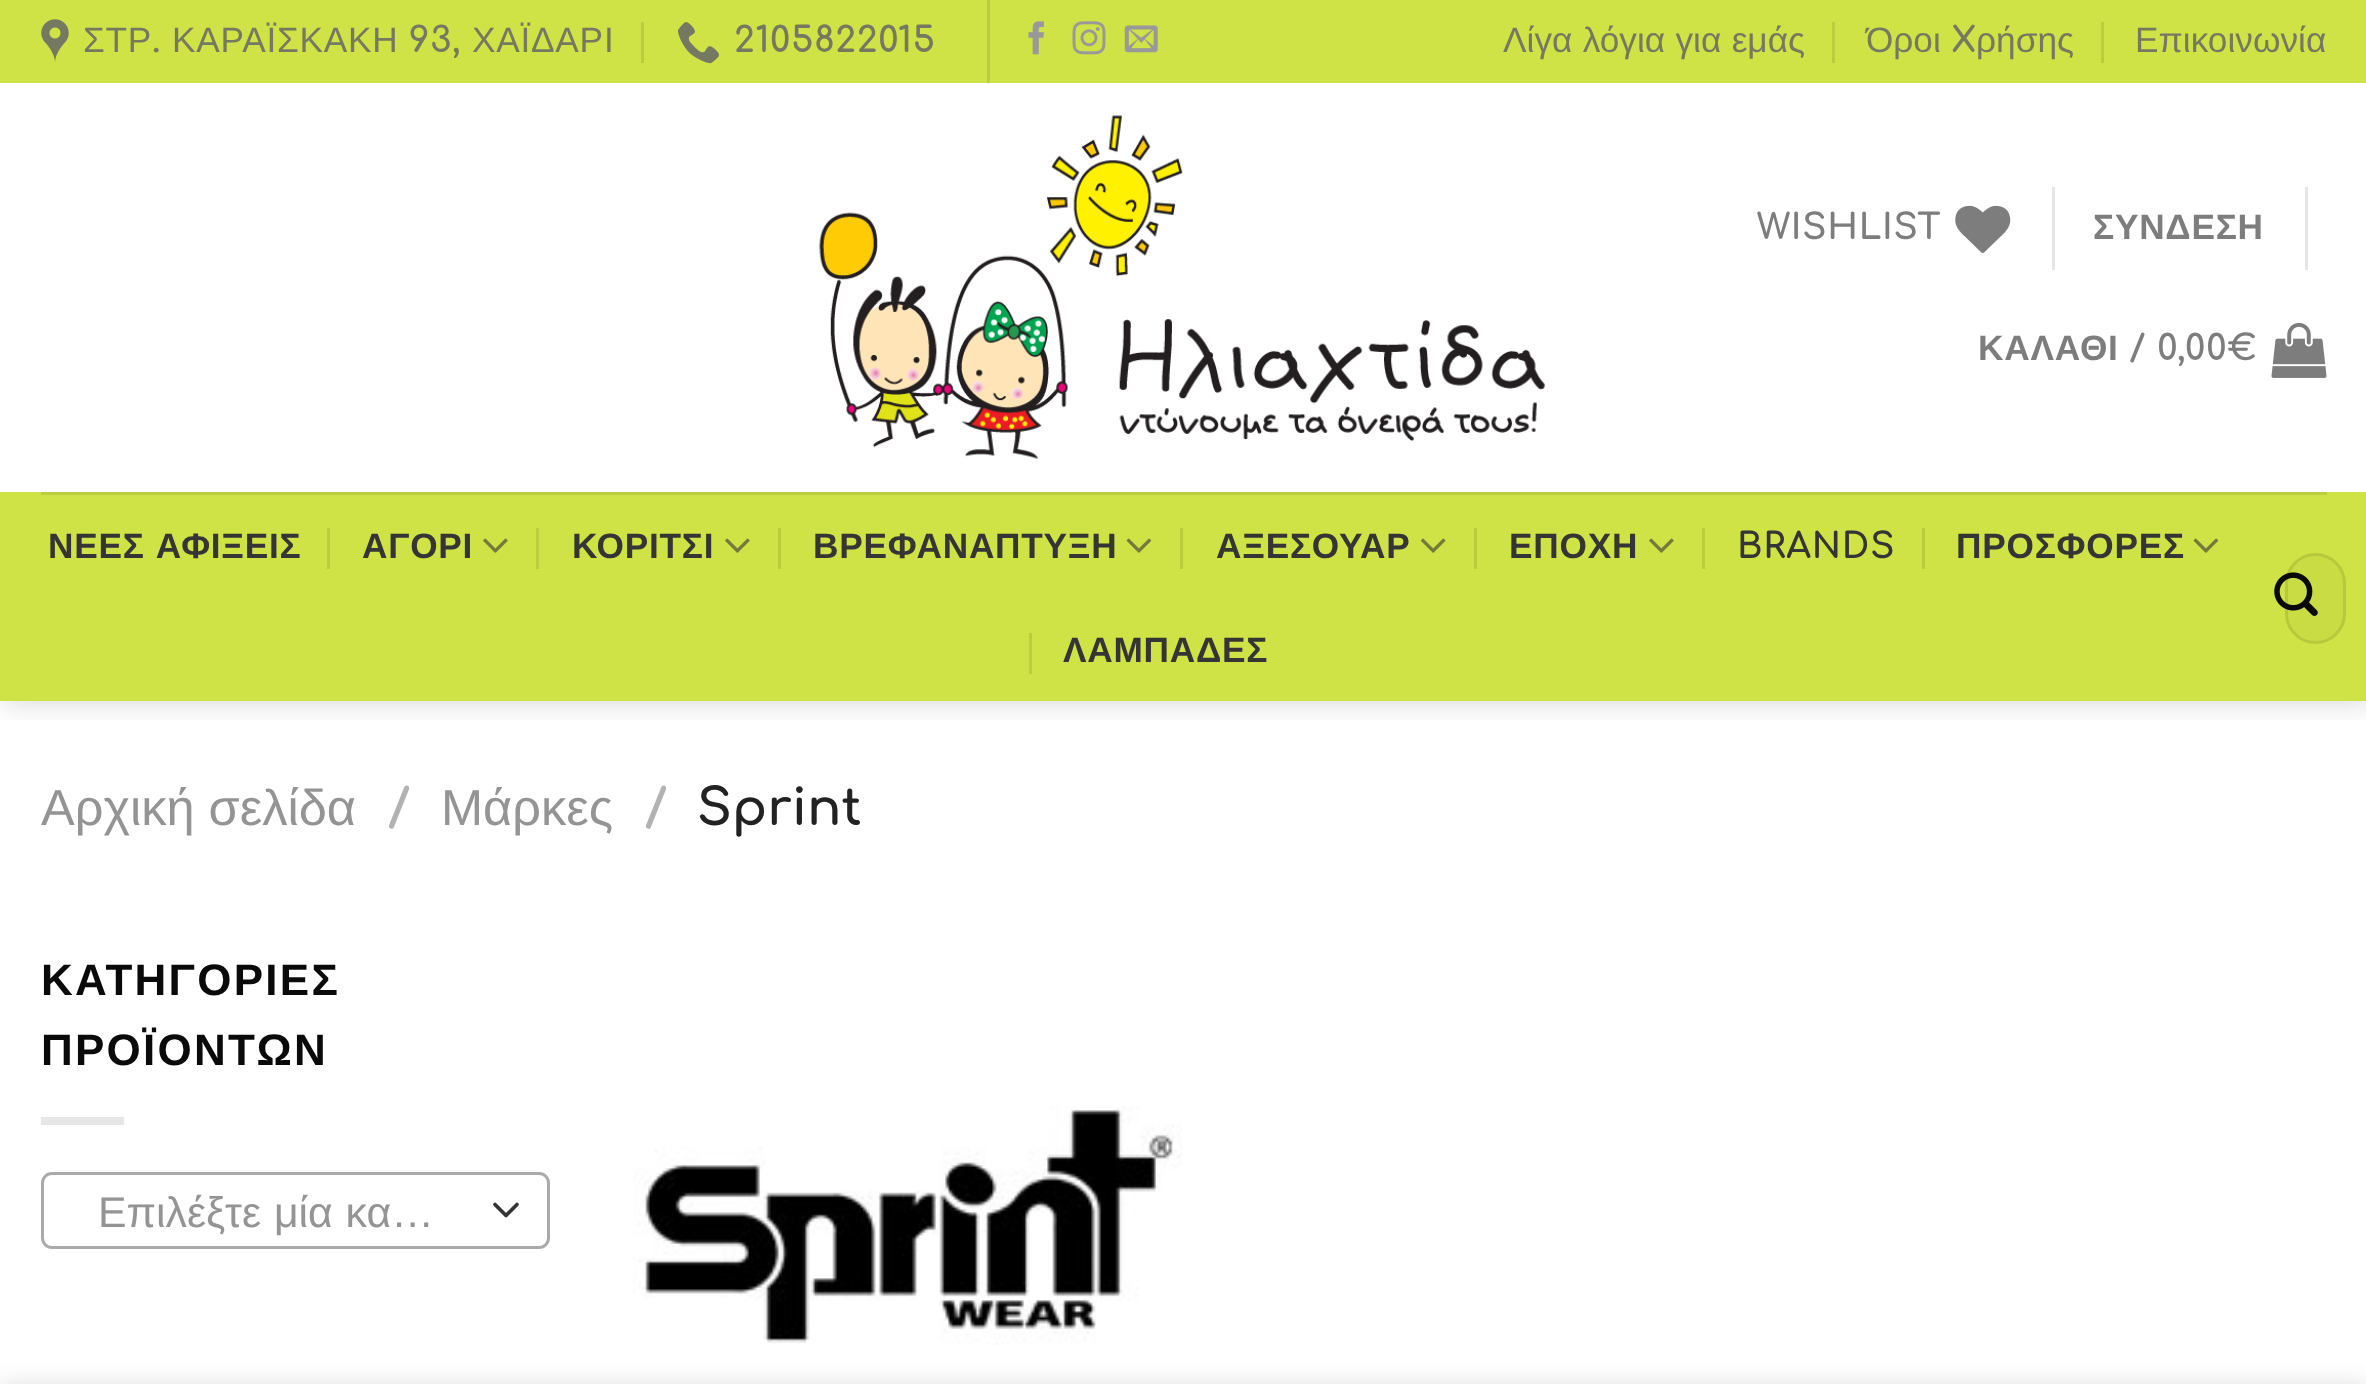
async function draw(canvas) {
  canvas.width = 2366
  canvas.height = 1384
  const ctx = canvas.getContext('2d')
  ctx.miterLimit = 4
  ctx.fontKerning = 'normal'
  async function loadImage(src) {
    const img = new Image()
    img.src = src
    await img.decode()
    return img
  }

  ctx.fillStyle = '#fff'
  ctx.fillRect(0, 0, 2366, 1384)
  ctx.save()
  ctx.beginPath()
  ctx.rect(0, 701, 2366, 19)
  ctx.clip()
  ctx.fillStyle = '#00000026'
  ctx.filter = 'blur(14px)'
  ctx.beginPath()
  ctx.rect(3, 3, 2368, 701)
  ctx.fill()
  ctx.filter = 'none'
  ctx.restore()
  ctx.fillStyle = '#d0e346'
  ctx.fillRect(0, 0, 2366, 83)
  ctx.drawImage(await loadImage('image0.png'), 41, 19, 28, 43)
  ctx.letterSpacing = '0.75px'
  ctx.font = '35.25px Liberation Sans'
  ctx.fillStyle = '#767961'
  ctx.fillText('ΣΤΡ', 83, 52)
  ctx.font = 'bold 35.25px Comfortaa'
  ctx.fillText('.', 152, 52)
  ctx.font = '35.25px Liberation Sans'
  ctx.fillText('ΚΑΡΑΪΣΚΑΚΗ', 172, 52)
  ctx.font = 'bold 35.25px Comfortaa'
  ctx.fillText('93,', 409, 52)
  ctx.font = '35.25px Liberation Sans'
  ctx.fillText('ΧΑΪΔΑΡΙ', 472, 52)
  ctx.fillStyle = '#bbcc3f'
  ctx.fillRect(641, 22, 3, 41)
  ctx.drawImage(await loadImage('image1.png'), 677, 22, 42, 42)
  ctx.font = 'bold 35.25px Comfortaa'
  ctx.fillStyle = '#767961'
  ctx.fillText('2105822015', 734, 52)
  ctx.fillStyle = '#bbcc3f'
  ctx.fillRect(987, 0, 3, 83)
  ctx.drawImage(await loadImage('image2.png'), 1028, 21, 16, 34)
  ctx.drawImage(await loadImage('image3.png'), 1072, 21, 34, 34)
  ctx.drawImage(await loadImage('image4.png'), 1124, 25, 34, 28)
  ctx.letterSpacing = '0px'
  ctx.wordSpacing = '0.5px'
  ctx.font = '35.25px Liberation Sans'
  ctx.fillStyle = '#767961'
  ctx.fillText('Λίγα λόγια για εμάς', 1503, 52)
  ctx.fillStyle = '#bbcc3f'
  ctx.fillRect(1832, 22, 3, 41)
  ctx.wordSpacing = '0px'
  ctx.fillStyle = '#767961'
  ctx.fillText('Όροι', 1866, 52)
  ctx.font = 'bold 35.25px Comfortaa'
  ctx.fillText('X', 1951, 52)
  ctx.font = '35.25px Liberation Sans'
  ctx.fillText('ρήσης', 1976, 52)
  ctx.fillStyle = '#bbcc3f'
  ctx.fillRect(2101, 22, 3, 41)
  ctx.fillStyle = '#767961'
  ctx.fillText('Επικοινωνία', 2135, 52)
  ctx.drawImage(await loadImage('image5.png'), 819, 115, 726, 344)
  ctx.letterSpacing = '0.75px'
  ctx.font = 'bold 35.25px Comfortaa'
  ctx.fillStyle = '#7d7d7d'
  ctx.fillText('WISHLIST', 1757, 239)
  ctx.drawImage(await loadImage('image6.png'), 1955, 205, 56, 48)
  ctx.fillStyle = '#e6e6e6'
  ctx.fillRect(2052, 187, 3, 83)
  ctx.font = 'bold 35.25px Liberation Sans'
  ctx.fillStyle = '#7d7d7d'
  ctx.fillText('ΣΥΝΔΕΣΗ', 2093, 239)
  ctx.fillStyle = '#e6e6e6'
  ctx.fillRect(2305, 187, 3, 83)
  ctx.fillStyle = '#7d7d7d'
  ctx.fillText('ΚΑΛΑΘΙ', 1978, 360)
  ctx.font = 'bold 35.25px Comfortaa'
  ctx.fillText('/ 0,00€', 2129, 360)
  ctx.drawImage(await loadImage('image7.png'), 2271, 322, 56, 56)
  ctx.fillStyle = '#d0e346'
  ctx.fillRect(0, 492, 2366, 209)
  ctx.fillStyle = '#bccd40'
  ctx.fillRect(41, 492, 2286, 3)
  ctx.wordSpacing = '2px'
  ctx.font = 'bold 35.25px Liberation Sans'
  ctx.fillStyle = '#353535'
  ctx.fillText('ΝΕΕΣ ΑΦΙΞΕΙΣ', 48, 558)
  ctx.fillStyle = '#bbcc3f'
  ctx.fillRect(327, 528, 3, 41)
  ctx.wordSpacing = '0px'
  ctx.fillStyle = '#353535'
  ctx.fillText('ΑΓΟΡΙ', 362, 558)
  ctx.drawImage(await loadImage('image8.png'), 483, 538, 25, 15)
  ctx.fillStyle = '#bbcc3f'
  ctx.fillRect(536, 528, 3, 41)
  ctx.fillStyle = '#353535'
  ctx.fillText('ΚΟΡΙΤΣΙ', 572, 558)
  ctx.drawImage(await loadImage('image8.png'), 725, 538, 25, 15)
  ctx.fillStyle = '#bbcc3f'
  ctx.fillRect(778, 528, 3, 41)
  ctx.fillStyle = '#353535'
  ctx.fillText('ΒΡΕΦΑΝΑΠΤΥΞΗ', 813, 558)
  ctx.drawImage(await loadImage('image9.png'), 1126, 538, 26, 15)
  ctx.fillStyle = '#bbcc3f'
  ctx.fillRect(1180, 528, 3, 41)
  ctx.fillStyle = '#353535'
  ctx.fillText('ΑΞΕΣΟΥΑΡ', 1216, 558)
  ctx.drawImage(await loadImage('image10.png'), 1421, 538, 25, 15)
  ctx.fillStyle = '#bbcc3f'
  ctx.fillRect(1474, 528, 3, 41)
  ctx.fillStyle = '#353535'
  ctx.fillText('ΕΠΟΧΗ', 1509, 558)
  ctx.drawImage(await loadImage('image8.png'), 1649, 538, 25, 15)
  ctx.fillStyle = '#bbcc3f'
  ctx.fillRect(1702, 528, 3, 41)
  ctx.font = 'bold 35.25px Comfortaa'
  ctx.fillStyle = '#353535'
  ctx.fillText('BRANDS', 1737, 558)
  ctx.fillStyle = '#bbcc3f'
  ctx.fillRect(1922, 528, 3, 41)
  ctx.font = 'bold 35.25px Liberation Sans'
  ctx.fillStyle = '#353535'
  ctx.fillText('ΠΡΟΣΦΟΡΕΣ', 1956, 558)
  ctx.drawImage(await loadImage('image9.png'), 2193, 538, 26, 15)
  ctx.fillStyle = '#bbcc3f'
  ctx.fillRect(1029, 633, 3, 41)
  ctx.fillStyle = '#353535'
  ctx.fillText('ΛΑΜΠΑΔΕΣ', 1063, 662)
  ctx.fillStyle = '#cadc44'
  ctx.beginPath()
  ctx.roundRect(2285, 553, 61, 91, 30.5)
  ctx.fill()
  ctx.beginPath()
  ctx.roundRect(2286.5, 554.5, 58, 88, 29)
  ctx.strokeStyle = '#00000017'
  ctx.lineWidth = 3
  ctx.stroke()
  ctx.drawImage(await loadImage('image11.png'), 2274, 572, 44, 44)
  ctx.letterSpacing = '0px'
  ctx.font = '50.5px Liberation Sans'
  ctx.fillStyle = '#949494'
  ctx.fillText('Αρχική σελίδα', 41, 825)
  ctx.font = 'bold 50.5px Comfortaa'
  ctx.fillStyle = '#b2b2b2'
  ctx.fillText('/', 387, 825)
  ctx.font = '50.5px Liberation Sans'
  ctx.fillStyle = '#949494'
  ctx.fillText('Μάρκες', 441, 825)
  ctx.font = 'bold 50.5px Comfortaa'
  ctx.fillStyle = '#b2b2b2'
  ctx.fillText('/', 644, 825)
  ctx.fillStyle = '#222'
  ctx.fillText('Sprint', 697, 825)
  ctx.letterSpacing = '2.25px'
  ctx.font = 'bold 44px Liberation Sans'
  ctx.fillStyle = '#0a0a0a'
  ctx.fillText('ΚΑΤΗΓΟΡΙΕΣ', 41, 995)
  ctx.fillText('ΠΡΟΪΟΝΤΩΝ', 41, 1065)
  ctx.fillStyle = '#e6e6e6'
  ctx.fillRect(41, 1117, 83, 8)
  ctx.beginPath()
  ctx.moveTo(495, 1204.5)
  ctx.lineTo(506, 1215.5)
  ctx.lineTo(517, 1204.5)
  ctx.strokeStyle = '#333'
  ctx.lineWidth = 3.7
  ctx.lineCap = 'round'
  ctx.lineJoin = 'round'
  ctx.stroke()
  ctx.beginPath()
  ctx.roundRect(42.5, 1173.5, 506, 74, 9.5)
  ctx.strokeStyle = '#aaa'
  ctx.lineWidth = 3
  ctx.lineJoin = 'miter'
  ctx.stroke()
  ctx.letterSpacing = '0px'
  ctx.wordSpacing = '1px'
  ctx.font = '42.75px Liberation Sans'
  ctx.fillStyle = '#949494'
  ctx.fillText('Επιλέξτε μία κα…', 98, 1227)
  ctx.drawImage(await loadImage('image12.png'), 633, 1106, 549, 239)
  ctx.fillStyle = '#00000024'
  ctx.filter = 'blur(12.5px)'
  ctx.beginPath()
  ctx.rect(0, 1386, 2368, 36)
  ctx.fill()
  ctx.filter = 'none'
}

draw(document.querySelector('canvas'))
